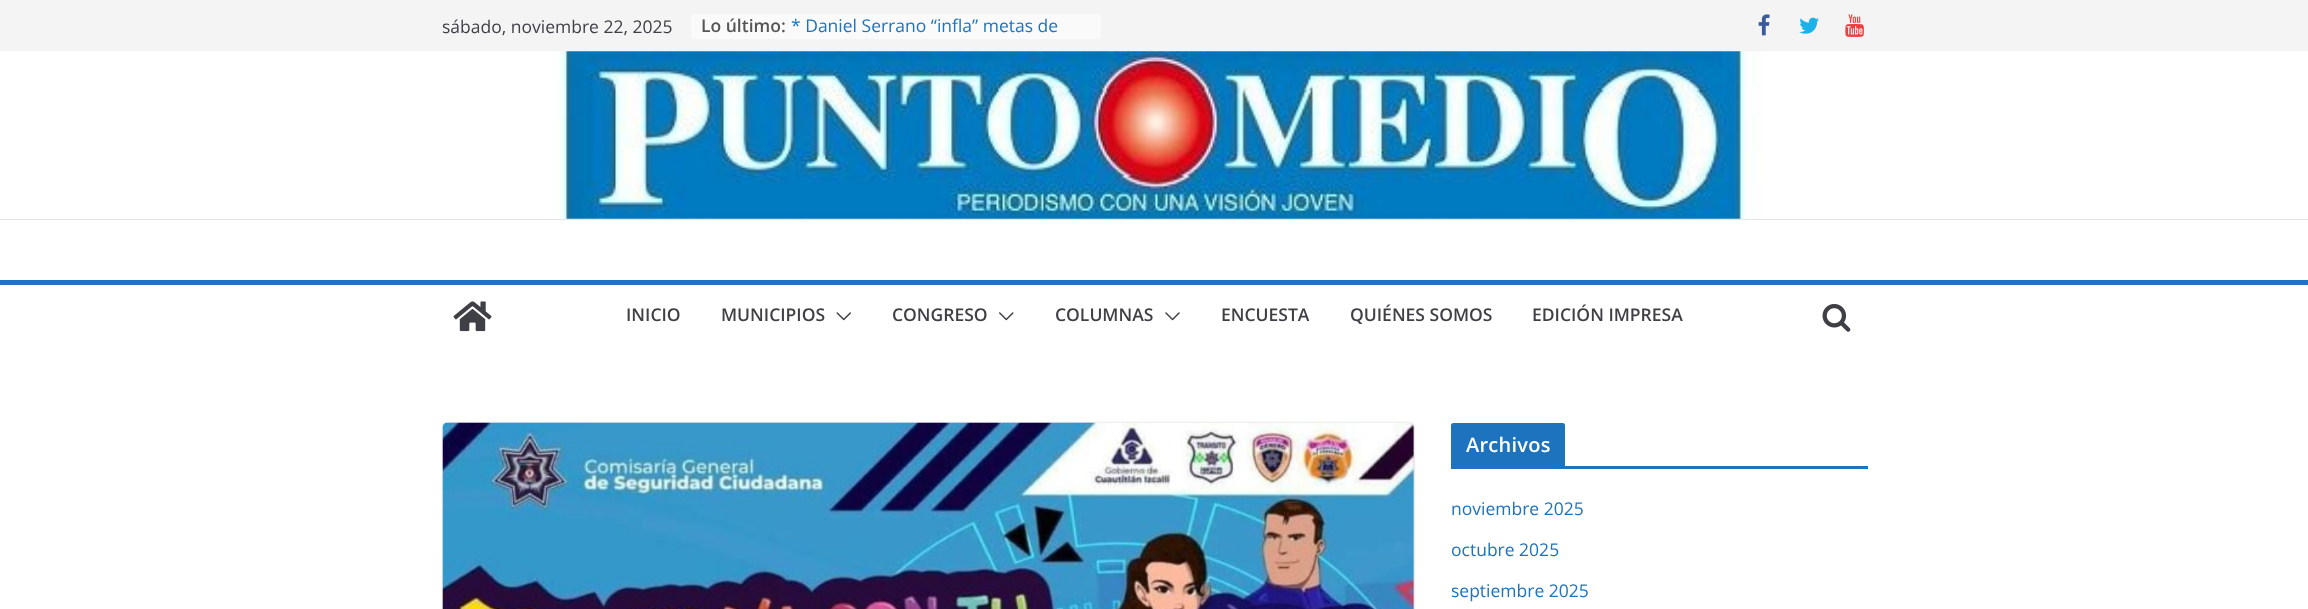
async function draw(canvas) {
  canvas.width = 2308
  canvas.height = 609
  const ctx = canvas.getContext('2d')
  ctx.miterLimit = 4
  ctx.fontKerning = 'normal'
  async function loadImage(src) {
    const img = new Image()
    img.src = src
    await img.decode()
    return img
  }

  ctx.fillStyle = '#fff'
  ctx.fillRect(0, 0, 2308, 609)
  ctx.fillStyle = '#0000001a'
  ctx.filter = 'blur(1px)'
  ctx.beginPath()
  ctx.rect(0, 0, 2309, 51)
  ctx.fill()
  ctx.filter = 'none'
  ctx.fillStyle = '#f4f4f5'
  ctx.fillRect(0, 0, 2308, 51)
  ctx.font = '17.5px Open Sans'
  ctx.fillStyle = '#3f3f46'
  ctx.fillText('sábado, noviembre 22, 2025', 442, 33)
  ctx.fillStyle = '#fafafa'
  ctx.fillRect(691, 14, 410, 25)
  ctx.font = '600 17.5px Open Sans'
  ctx.fillStyle = '#555'
  ctx.fillText('Lo último:', 701, 32)
  ctx.font = '17.5px Open Sans'
  ctx.fillStyle = '#1e73be'
  ctx.fillText('* Daniel Serrano “infla” metas de', 791, 32)
  ctx.drawImage(await loadImage('image0.png'), 1758, 14, 12, 22)
  ctx.drawImage(await loadImage('image1.png'), 1799, 17, 20, 17)
  ctx.drawImage(await loadImage('image2.png'), 1845, 14, 19, 23)
  ctx.drawImage(await loadImage('image3.png'), 1, 51, 2307, 168)
  ctx.fillStyle = '#e4e4e7'
  ctx.fillRect(0, 219, 2308, 1)
  ctx.fillStyle = '#1e73be'
  ctx.fillRect(0, 280, 2308, 5)
  ctx.drawImage(await loadImage('image4.png'), 453, 301, 39, 31)
  ctx.font = '600 17.5px Open Sans'
  ctx.fillStyle = '#3f3f46'
  ctx.fillText('INICIO', 626, 321)
  ctx.fillText('MUNICIPIOS', 721, 321)
  ctx.drawImage(await loadImage('image5.png'), 836, 312, 15, 9)
  ctx.fillText('CONGRESO', 892, 321)
  ctx.drawImage(await loadImage('image6.png'), 999, 312, 15, 9)
  ctx.fillText('COLUMNAS', 1055, 321)
  ctx.drawImage(await loadImage('image7.png'), 1165, 312, 15, 9)
  ctx.fillText('ENCUESTA', 1221, 321)
  ctx.fillText('QUIÉNES SOMOS', 1350, 321)
  ctx.fillText('EDICIÓN IMPRESA', 1532, 321)
  ctx.drawImage(await loadImage('image8.png'), 1822, 303, 29, 29)
  ctx.fillStyle = '#0000003d'
  ctx.filter = 'blur(1px)'
  ctx.beginPath()
  ctx.roundRect(443, 423, 971, 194, 5)
  ctx.fill()
  ctx.filter = 'none'
  ctx.drawImage(await loadImage('image9.png'), 442, 422, 972, 187)
  ctx.fillStyle = '#1e73be'
  ctx.fillRect(1451, 466, 417, 3)
  ctx.beginPath()
  ctx.roundRect(1451, 423, 114, 43, [2.5, 2.5, 0, 0])
  ctx.fill()
  ctx.letterSpacing = '0.25px'
  ctx.font = '600 20px Open Sans'
  ctx.fillStyle = '#fff'
  ctx.fillText('Archivos', 1466, 452)
  ctx.letterSpacing = '0px'
  ctx.font = '17.5px Open Sans'
  ctx.fillStyle = '#1e73be'
  ctx.fillText('noviembre 2025', 1451, 515)
  ctx.fillText('octubre 2025', 1451, 556)
  ctx.fillText('septiembre 2025', 1451, 597)
}

draw(document.querySelector('canvas'))
